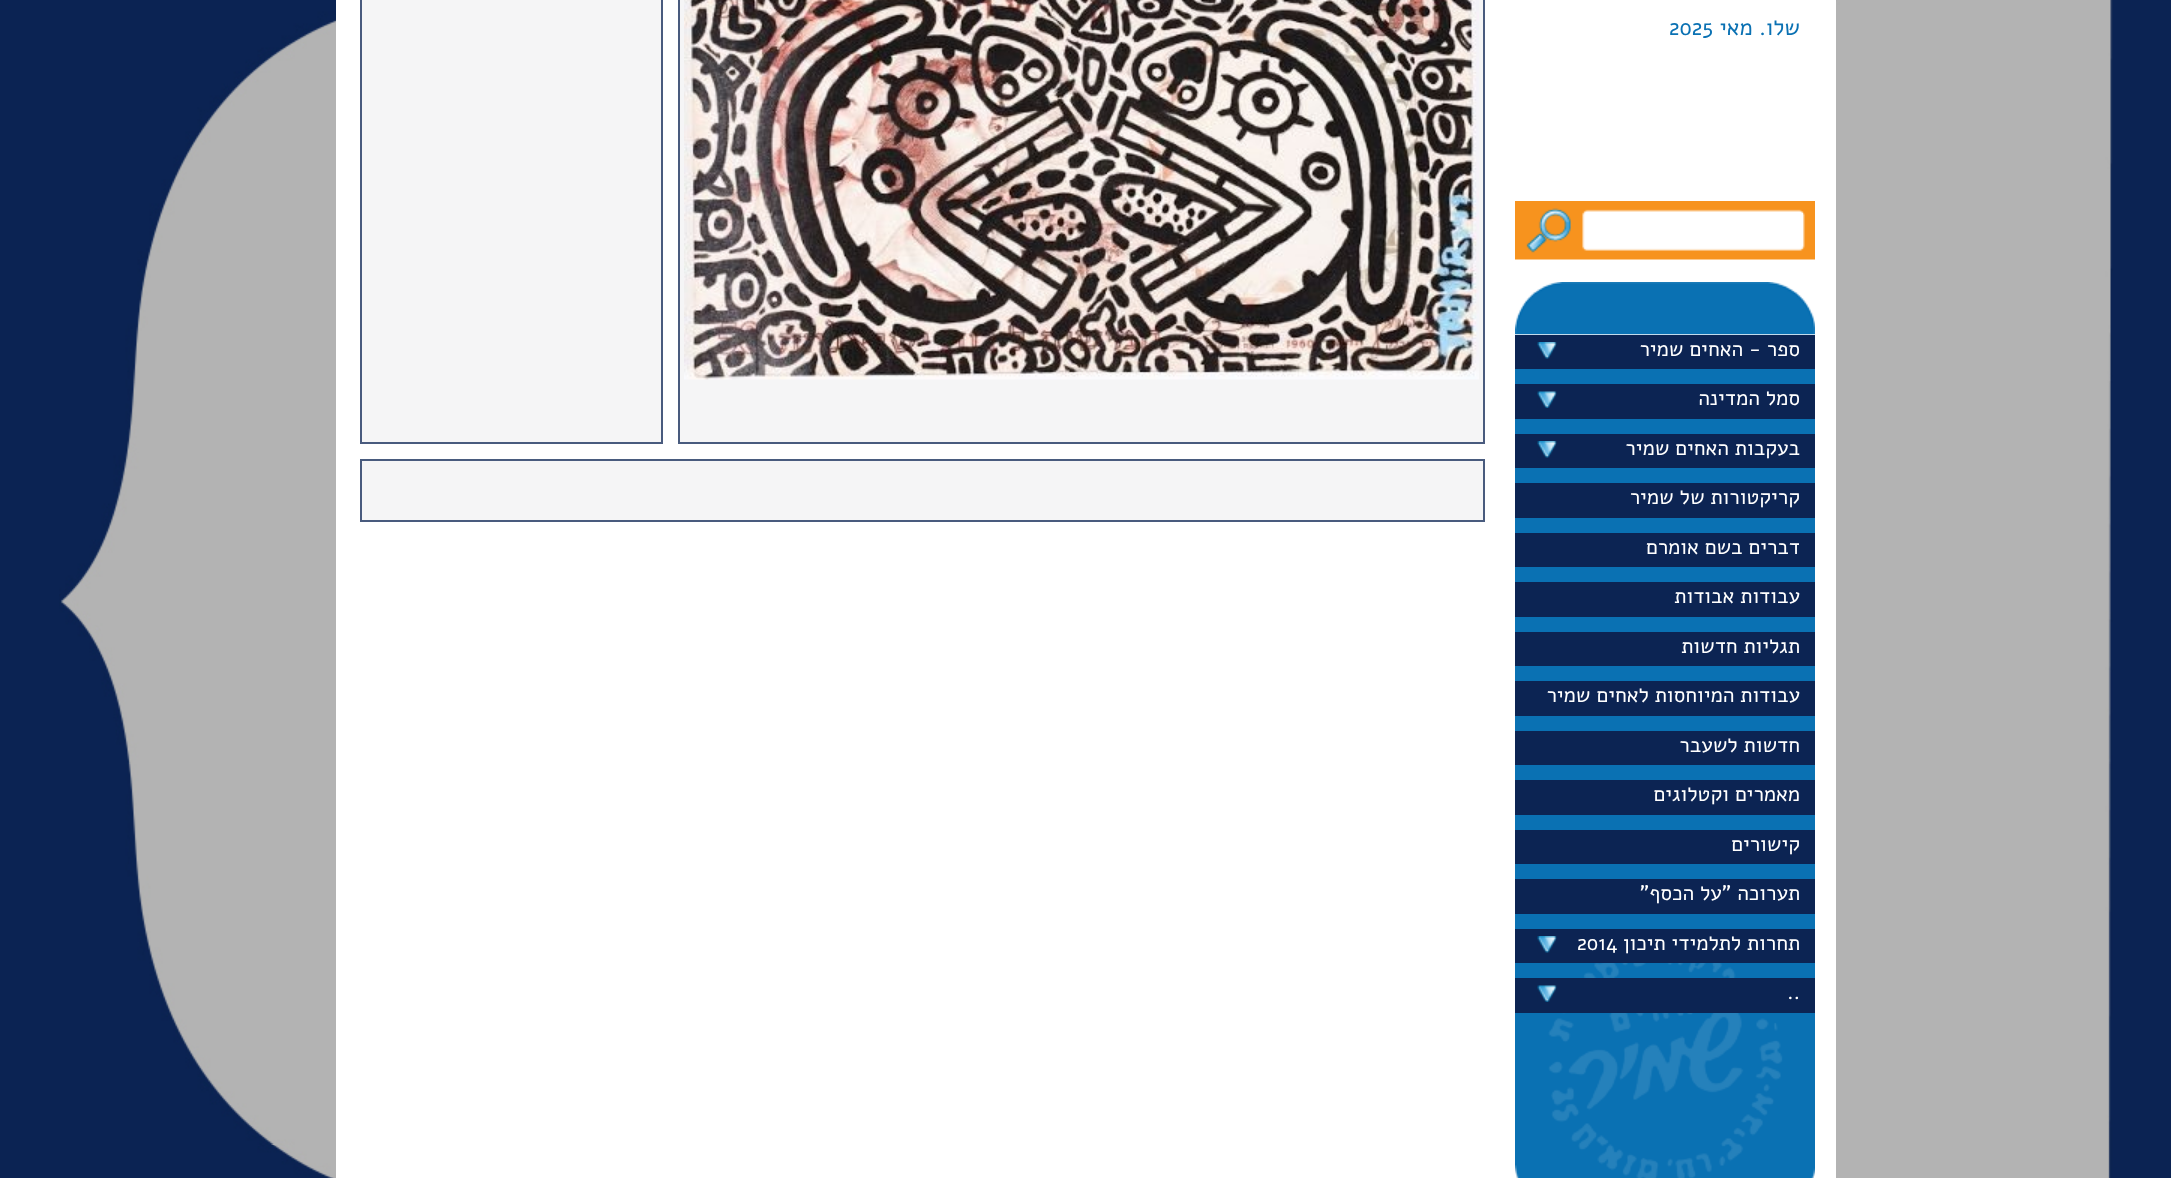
async function draw(canvas) {
  canvas.width = 2171
  canvas.height = 1178
  const ctx = canvas.getContext('2d')
  ctx.miterLimit = 4
  ctx.fontKerning = 'normal'
  async function loadImage(src) {
    const img = new Image()
    img.src = src
    await img.decode()
    return img
  }

  ctx.fillStyle = '#0b2353'
  ctx.fillRect(0, 0, 2171, 1178)
  ctx.drawImage(await loadImage('image0.png'), 59, 0, 2054, 1178)
  ctx.fillStyle = '#fff'
  ctx.fillRect(336, 0, 1500, 1178)
  ctx.direction = 'rtl'
  ctx.font = '22.5px Alef'
  ctx.fillStyle = '#0a71b3'
  ctx.fillText('שלו. מאי', 1800, 35)
  ctx.direction = 'ltr'
  ctx.fillText('2025', 1669, 35)
  ctx.drawImage(await loadImage('image1.png'), 1515, 201, 300, 59)
  ctx.fillStyle = '#fff'
  ctx.fillRect(1801, 213, 2, 33)
  ctx.drawImage(await loadImage('image2.png'), 1515, 369, 300, 809)
  ctx.drawImage(await loadImage('image3.png'), 1515, 282, 300, 53)
  ctx.fillStyle = '#0c2453'
  ctx.fillRect(1515, 335, 300, 34)
  ctx.direction = 'rtl'
  ctx.font = '21px Alef'
  ctx.fillStyle = '#fff'
  ctx.fillText('ספר - האחים שמיר', 1800, 356)
  ctx.drawImage(await loadImage('image4.png'), 1537, 342, 20, 17)
  ctx.fillStyle = '#0c2453'
  ctx.fillRect(1515, 384, 300, 35)
  ctx.fillStyle = '#fff'
  ctx.fillText('סמל המדינה', 1800, 405)
  ctx.drawImage(await loadImage('image5.png'), 1537, 391, 20, 17)
  ctx.fillStyle = '#0c2453'
  ctx.fillRect(1515, 434, 300, 34)
  ctx.fillStyle = '#fff'
  ctx.fillText('בעקבות האחים שמיר', 1800, 455)
  ctx.drawImage(await loadImage('image4.png'), 1537, 441, 20, 17)
  ctx.fillStyle = '#0c2453'
  ctx.fillRect(1515, 483, 300, 35)
  ctx.fillStyle = '#fff'
  ctx.fillText('קריקטורות של שמיר', 1800, 504)
  ctx.fillStyle = '#0c2453'
  ctx.fillRect(1515, 533, 300, 34)
  ctx.fillStyle = '#fff'
  ctx.fillText('דברים בשם אומרם', 1800, 554)
  ctx.fillStyle = '#0c2453'
  ctx.fillRect(1515, 582, 300, 35)
  ctx.fillStyle = '#fff'
  ctx.fillText('עבודות אבודות', 1800, 603)
  ctx.fillStyle = '#0c2453'
  ctx.fillRect(1515, 632, 300, 34)
  ctx.fillStyle = '#fff'
  ctx.fillText('תגליות חדשות', 1800, 653)
  ctx.fillStyle = '#0c2453'
  ctx.fillRect(1515, 681, 300, 35)
  ctx.fillStyle = '#fff'
  ctx.fillText('עבודות המיוחסות לאחים שמיר', 1800, 702)
  ctx.fillStyle = '#0c2453'
  ctx.fillRect(1515, 731, 300, 34)
  ctx.fillStyle = '#fff'
  ctx.fillText('חדשות לשעבר', 1800, 752)
  ctx.fillStyle = '#0c2453'
  ctx.fillRect(1515, 780, 300, 35)
  ctx.fillStyle = '#fff'
  ctx.fillText('מאמרים וקטלוגים', 1800, 801)
  ctx.fillStyle = '#0c2453'
  ctx.fillRect(1515, 830, 300, 34)
  ctx.fillStyle = '#fff'
  ctx.fillText('קישורים', 1800, 851)
  ctx.fillStyle = '#0c2453'
  ctx.fillRect(1515, 879, 300, 35)
  ctx.fillStyle = '#fff'
  ctx.fillText('תערוכה "על הכסף"', 1800, 900)
  ctx.fillStyle = '#0c2453'
  ctx.fillRect(1515, 929, 300, 34)
  ctx.fillStyle = '#fff'
  ctx.fillText('תחרות לתלמידי תיכון', 1800, 950)
  ctx.direction = 'ltr'
  ctx.fillText('2014', 1577, 950)
  ctx.drawImage(await loadImage('image4.png'), 1537, 936, 20, 17)
  ctx.fillStyle = '#0c2453'
  ctx.fillRect(1515, 978, 300, 35)
  ctx.fillStyle = '#fff'
  ctx.fillText('..', 1787, 999)
  ctx.drawImage(await loadImage('image5.png'), 1537, 985, 20, 17)
  ctx.fillStyle = '#f5f5f6'
  ctx.beginPath()
  ctx.rect(679, -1, 805, 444)
  ctx.fill()
  ctx.strokeStyle = '#495b7e'
  ctx.lineWidth = 2
  ctx.stroke()
  ctx.drawImage(await loadImage('image6.png'), 684, 0, 795, 380)
  ctx.beginPath()
  ctx.rect(361, -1, 301, 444)
  ctx.fill()
  ctx.stroke()
  ctx.beginPath()
  ctx.rect(361, 460, 1123, 61)
  ctx.fill()
  ctx.stroke()
}

draw(document.querySelector('canvas'))
